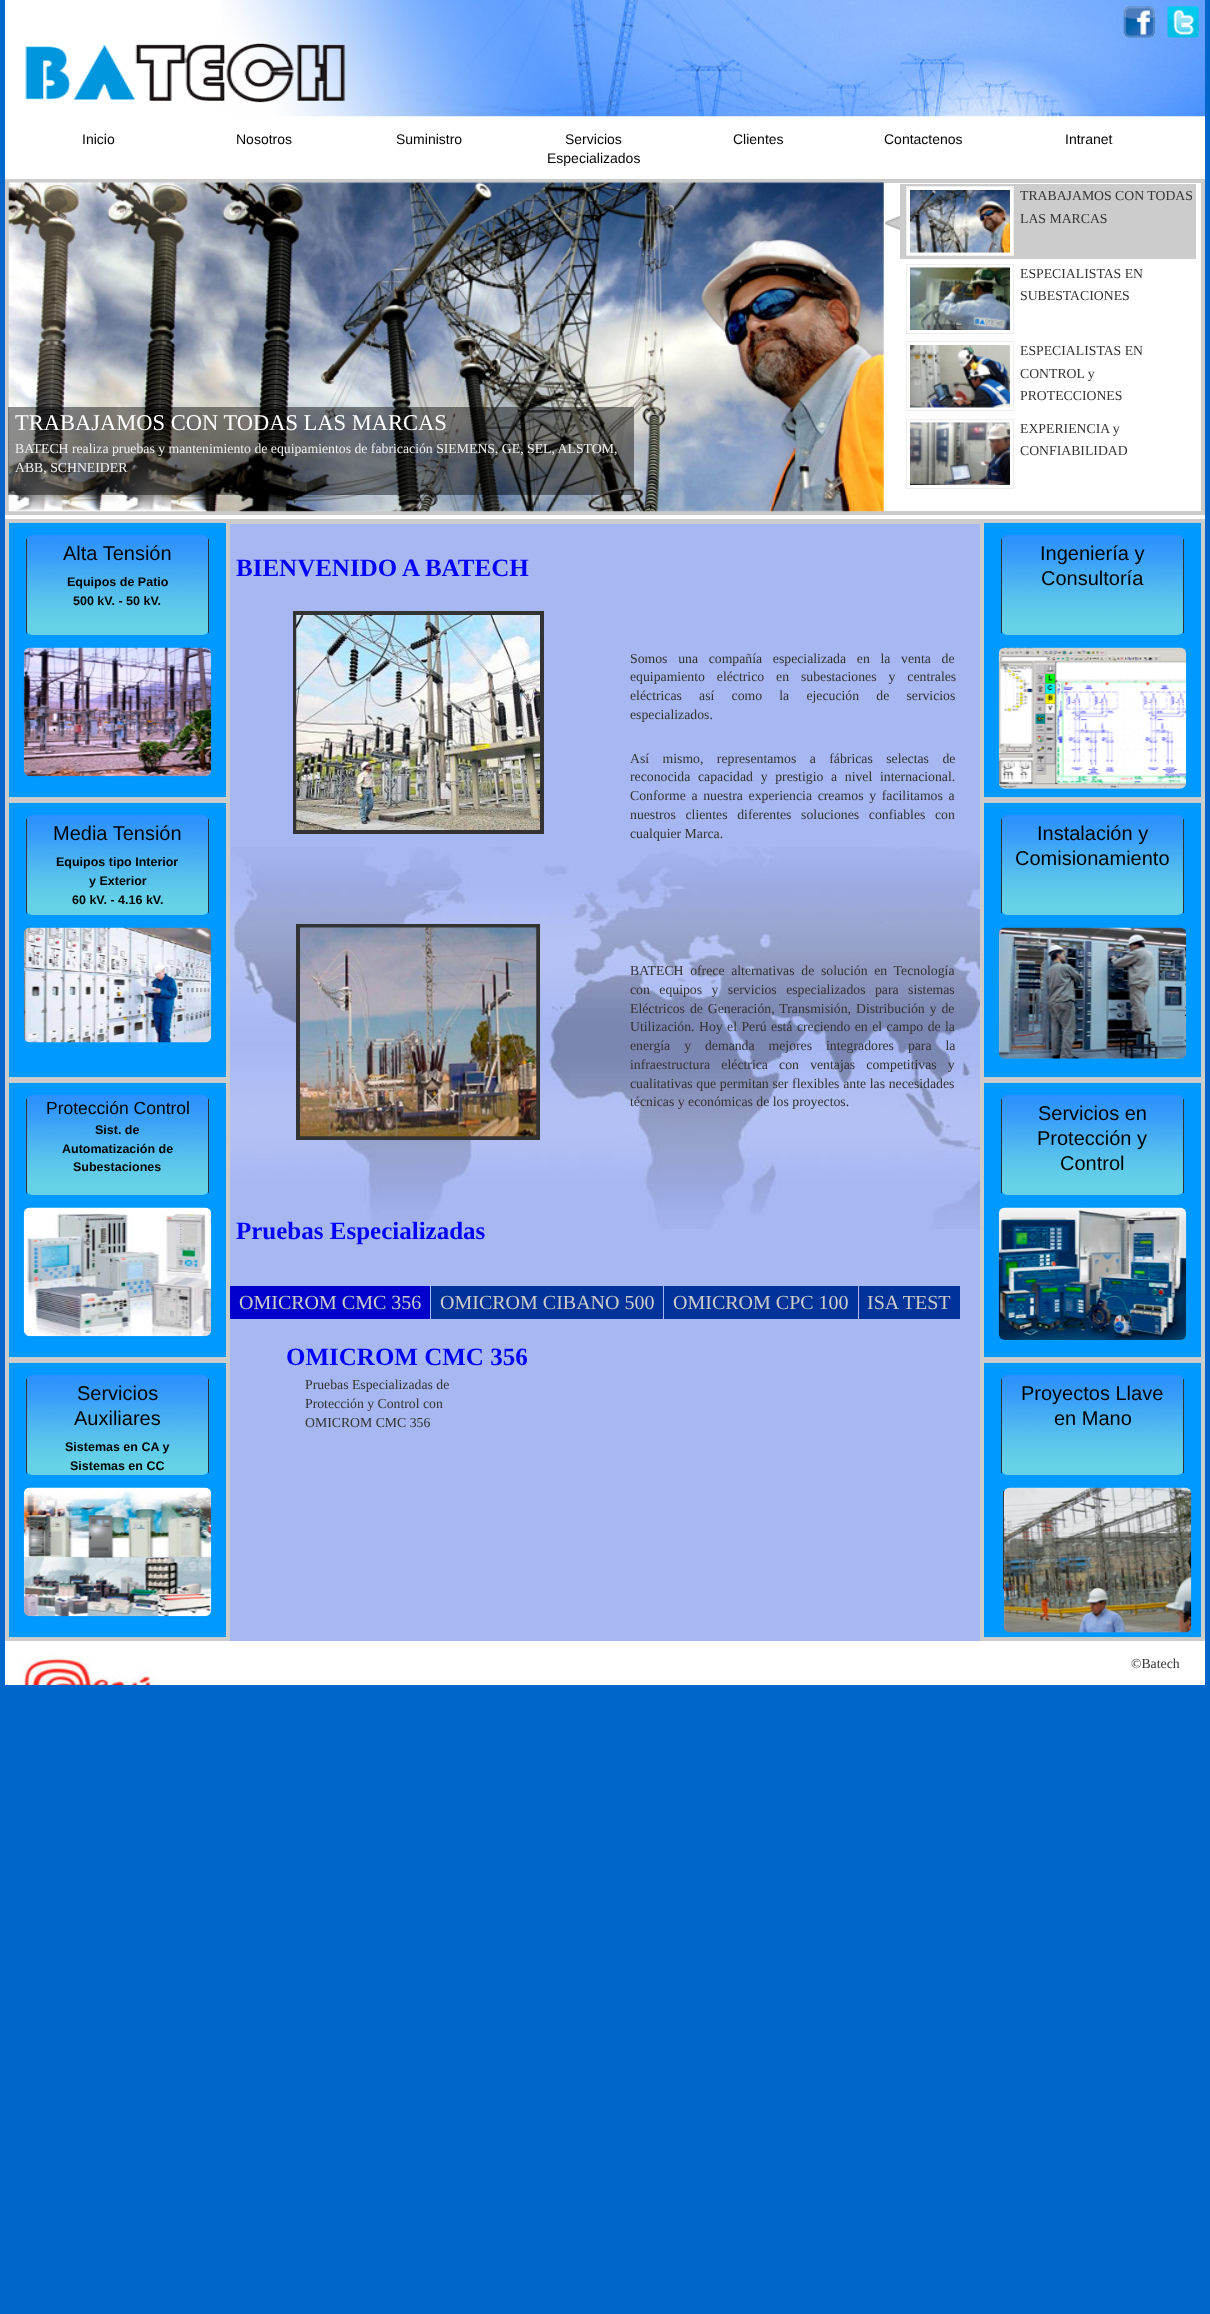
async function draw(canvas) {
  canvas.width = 1210
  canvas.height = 2314
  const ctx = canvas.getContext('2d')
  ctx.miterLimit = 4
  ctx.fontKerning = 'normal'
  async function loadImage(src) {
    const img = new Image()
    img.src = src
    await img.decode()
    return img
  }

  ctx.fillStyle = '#06c'
  ctx.fillRect(0, 0, 1210, 2314)
  ctx.fillStyle = '#fff'
  ctx.fillRect(5, 0, 1200, 1685)
  ctx.drawImage(await loadImage('image0.png'), 221, 0, 984, 117)
  ctx.drawImage(await loadImage('image1.png'), 1123, 6, 32, 32)
  ctx.drawImage(await loadImage('image2.png'), 1167, 6, 32, 32)
  ctx.drawImage(await loadImage('image3.png'), 25, 43, 321, 60)
  ctx.font = '14px Liberation Sans'
  ctx.fillStyle = '#000'
  ctx.fillText('Inicio', 82, 144)
  ctx.fillText('Nosotros', 236, 144)
  ctx.fillText('Suministro', 396, 144)
  ctx.fillText('Servicios', 565, 144)
  ctx.fillText('Especializados', 547, 163)
  ctx.fillText('Clientes', 733, 144)
  ctx.fillText('Contactenos', 884, 144)
  ctx.fillText('Intranet', 1065, 144)
  ctx.strokeStyle = '#ccc'
  ctx.lineWidth = 4
  ctx.strokeRect(7, 181, 1196, 332)
  ctx.drawImage(await loadImage('image4.png'), 8, 182, 876, 330)
  ctx.fillStyle = '#00000073'
  ctx.fillRect(8, 407, 626, 88)
  ctx.font = '22.5px Liberation Serif'
  ctx.fillStyle = '#fff'
  ctx.fillText('TRABAJAMOS CON TODAS LAS MARCAS', 15, 430)
  ctx.font = '13.75px Liberation Serif'
  ctx.fillStyle = '#f0f0f0'
  ctx.fillText('BATECH realiza pruebas y mantenimiento de equipamientos de fabricación SIEMENS, GE, SEL, ALSTOM,', 15, 453)
  ctx.fillText('ABB, SCHNEIDER', 15, 472)
  ctx.drawImage(await loadImage('image5.png'), 884, 215, 16, 16)
  ctx.fillStyle = '#ccc'
  ctx.fillRect(900, 184, 296, 75)
  ctx.fillStyle = '#fff'
  ctx.beginPath()
  ctx.rect(906.5, 186.5, 107, 69)
  ctx.fill()
  ctx.strokeStyle = '#eee'
  ctx.lineWidth = 1
  ctx.stroke()
  ctx.drawImage(await loadImage('image6.png'), 910, 190, 100, 63)
  ctx.fillStyle = '#333'
  ctx.fillText('TRABAJAMOS CON TODAS', 1020, 200)
  ctx.fillText('LAS MARCAS', 1020, 223)
  ctx.strokeRect(906.5, 264.5, 107, 69)
  ctx.drawImage(await loadImage('image7.png'), 910, 267, 100, 63)
  ctx.fillText('ESPECIALISTAS EN', 1020, 278)
  ctx.fillText('SUBESTACIONES', 1020, 300)
  ctx.strokeRect(906.5, 341.5, 107, 69)
  ctx.drawImage(await loadImage('image8.png'), 910, 345, 100, 63)
  ctx.fillText('ESPECIALISTAS EN', 1020, 355)
  ctx.fillText('CONTROL y', 1020, 378)
  ctx.fillText('PROTECCIONES', 1020, 400)
  ctx.strokeRect(906.5, 419.5, 107, 69)
  ctx.drawImage(await loadImage('image9.png'), 910, 422, 100, 63)
  ctx.fillText('EXPERIENCIA y', 1020, 433)
  ctx.fillText('CONFIABILIDAD', 1020, 455)
  ctx.fillStyle = '#09f'
  ctx.fillRect(9, 523, 217, 1114)
  ctx.strokeStyle = '#ccc'
  ctx.strokeRect(5.5, 519.5, 224, 1121)
  ctx.lineWidth = 3
  ctx.strokeRect(7.5, 521.5, 220, 277)
  ctx.drawImage(await loadImage('image10.png'), 26, 535, 183, 100)
  ctx.fillStyle = '#333'
  ctx.fillRect(208, 539, 1, 94)
  ctx.fillRect(26, 539, 1, 94)
  ctx.font = '20px Liberation Sans'
  ctx.fillStyle = '#000'
  ctx.fillText('Alta Tensión', 63, 560)
  ctx.font = 'bold 12.5px Liberation Sans'
  ctx.fillText('Equipos de Patio', 67, 586)
  ctx.fillText('500 kV. - 50 kV.', 73, 605)
  ctx.drawImage(await loadImage('image11.png'), 23, 647, 189, 130)
  ctx.strokeRect(7.5, 801.5, 220, 277)
  ctx.drawImage(await loadImage('image12.png'), 26, 815, 183, 100)
  ctx.fillStyle = '#333'
  ctx.fillRect(208, 819, 1, 94)
  ctx.fillRect(26, 819, 1, 94)
  ctx.font = '20px Liberation Sans'
  ctx.fillStyle = '#000'
  ctx.fillText('Media Tensión', 53, 840)
  ctx.font = 'bold 12.5px Liberation Sans'
  ctx.fillText('Equipos tipo Interior', 56, 866)
  ctx.fillText('y Exterior', 89, 885)
  ctx.fillText('60 kV. - 4.16 kV.', 72, 904)
  ctx.drawImage(await loadImage('image13.png'), 23, 927, 189, 116)
  ctx.strokeRect(7.5, 1081.5, 220, 277)
  ctx.drawImage(await loadImage('image14.png'), 26, 1095, 183, 100)
  ctx.fillStyle = '#333'
  ctx.fillRect(208, 1099, 1, 94)
  ctx.fillRect(26, 1099, 1, 94)
  ctx.font = '17.5px Liberation Sans'
  ctx.fillStyle = '#000'
  ctx.fillText('Protección Control', 46, 1114)
  ctx.font = 'bold 12.5px Liberation Sans'
  ctx.fillText('Sist. de', 95, 1134)
  ctx.fillText('Automatización de', 62, 1153)
  ctx.fillText('Subestaciones', 73, 1171)
  ctx.drawImage(await loadImage('image15.png'), 23, 1207, 189, 130)
  ctx.strokeRect(7.5, 1361.5, 220, 277)
  ctx.drawImage(await loadImage('image16.png'), 26, 1375, 183, 100)
  ctx.fillStyle = '#333'
  ctx.fillRect(208, 1379, 1, 94)
  ctx.fillRect(26, 1379, 1, 94)
  ctx.font = '20px Liberation Sans'
  ctx.fillStyle = '#000'
  ctx.fillText('Servicios', 77, 1400)
  ctx.fillText('Auxiliares', 74, 1425)
  ctx.font = 'bold 12.5px Liberation Sans'
  ctx.fillText('Sistemas en CA y', 65, 1451)
  ctx.fillText('Sistemas en CC', 70, 1470)
  ctx.drawImage(await loadImage('image17.png'), 23, 1487, 189, 130)
  ctx.fillStyle = '#a7b7f2'
  ctx.fillRect(230, 524, 750, 1117)
  ctx.drawImage(await loadImage('image18.png'), 230, 847, 750, 382)
  ctx.fillStyle = '#ccc'
  ctx.fillRect(230, 519, 750, 5)
  ctx.font = 'bold 25px Liberation Serif'
  ctx.fillStyle = '#00f'
  ctx.fillText('BIENVENIDO A BATECH', 236, 576)
  ctx.strokeStyle = '#333'
  ctx.lineWidth = 4
  ctx.strokeRect(295, 613, 247, 219)
  ctx.drawImage(await loadImage('image19.png'), 296, 615, 244, 215)
  ctx.wordSpacing = '7.25px'
  ctx.font = '13.75px Liberation Serif'
  ctx.fillStyle = '#333'
  ctx.fillText('Somos una compañía especializada en la venta de', 630, 663)
  ctx.wordSpacing = '8.5px'
  ctx.fillText('equipamiento eléctrico en subestaciones y centrales', 630, 681)
  ctx.wordSpacing = '13.75px'
  ctx.fillText('eléctricas así como la ejecución de servicios', 630, 700)
  ctx.wordSpacing = '0px'
  ctx.fillText('especializados.', 630, 719)
  ctx.wordSpacing = '10px'
  ctx.fillText('Así mismo, representamos a fábricas selectas de', 630, 763)
  ctx.wordSpacing = '4.25px'
  ctx.fillText('reconocida capacidad y prestigio a nivel internacional.', 630, 781)
  ctx.wordSpacing = '2.25px'
  ctx.fillText('Conforme a nuestra experiencia creamos y facilitamos a', 630, 800)
  ctx.wordSpacing = '6.25px'
  ctx.fillText('nuestros clientes diferentes soluciones confiables con', 630, 819)
  ctx.wordSpacing = '0px'
  ctx.fillText('cualquier Marca.', 630, 838)
  ctx.strokeRect(298, 926, 240, 212)
  ctx.drawImage(await loadImage('image20.png'), 300, 927, 237, 210)
  ctx.wordSpacing = '3.25px'
  ctx.fillText('BATECH ofrece alternativas de solución en Tecnología', 630, 975)
  ctx.wordSpacing = '6px'
  ctx.fillText('con equipos y servicios especializados para sistemas', 630, 994)
  ctx.wordSpacing = '1.5px'
  ctx.fillText('Eléctricos de Generación, Transmisión, Distribución y de', 630, 1013)
  ctx.wordSpacing = '1px'
  ctx.fillText('Utilización. Hoy el Perú está creciendo en el campo de la', 630, 1031)
  ctx.wordSpacing = '10.5px'
  ctx.fillText('energía y demanda mejores integradores para la', 630, 1050)
  ctx.wordSpacing = '7.75px'
  ctx.fillText('infraestructura eléctrica con ventajas competitivas y', 630, 1069)
  ctx.wordSpacing = '0.25px'
  ctx.fillText('cualitativas que permitan ser flexibles ante las necesidades', 630, 1088)
  ctx.wordSpacing = '0px'
  ctx.fillText('técnicas y económicas de los proyectos.', 630, 1106)
  ctx.font = 'bold 25px Liberation Serif'
  ctx.fillStyle = '#00f'
  ctx.fillText('Pruebas Especializadas', 236, 1239)
  ctx.fillStyle = '#00c'
  ctx.fillRect(230, 1286, 200, 33)
  ctx.font = '20px Liberation Serif'
  ctx.fillStyle = '#ccc'
  ctx.fillText('OMICROM CMC 356', 239, 1309)
  ctx.fillStyle = '#039'
  ctx.fillRect(431, 1286, 232, 33)
  ctx.fillStyle = '#ccc'
  ctx.fillText('OMICROM CIBANO 500', 440, 1309)
  ctx.fillStyle = '#039'
  ctx.fillRect(664, 1286, 194, 33)
  ctx.fillStyle = '#ccc'
  ctx.fillText('OMICROM CPC 100', 673, 1309)
  ctx.fillStyle = '#039'
  ctx.fillRect(859, 1286, 101, 33)
  ctx.fillStyle = '#ccc'
  ctx.fillText('ISA TEST', 867, 1309)
  ctx.font = 'bold 25px Liberation Serif'
  ctx.fillStyle = '#00f'
  ctx.fillText('OMICROM CMC 356', 286, 1365)
  ctx.font = '13.75px Liberation Serif'
  ctx.fillStyle = '#333'
  ctx.fillText('Pruebas Especializadas de', 305, 1389)
  ctx.fillText('Protección y Control con', 305, 1408)
  ctx.fillText('OMICROM CMC 356', 305, 1427)
  ctx.fillStyle = '#09f'
  ctx.fillRect(984, 523, 217, 1114)
  ctx.strokeStyle = '#ccc'
  ctx.lineWidth = 1
  ctx.strokeRect(980.5, 519.5, 224, 1121)
  ctx.lineWidth = 3
  ctx.strokeRect(982.5, 521.5, 220, 277)
  ctx.drawImage(await loadImage('image21.png'), 1001, 535, 183, 100)
  ctx.fillStyle = '#333'
  ctx.fillRect(1183, 539, 1, 94)
  ctx.fillRect(1001, 539, 1, 94)
  ctx.font = '20px Liberation Sans'
  ctx.fillStyle = '#000'
  ctx.fillText('Ingeniería y', 1040, 560)
  ctx.fillText('Consultoría', 1041, 585)
  ctx.drawImage(await loadImage('image22.png'), 998, 647, 189, 142)
  ctx.strokeRect(982.5, 801.5, 220, 277)
  ctx.drawImage(await loadImage('image23.png'), 1001, 815, 183, 100)
  ctx.fillStyle = '#333'
  ctx.fillRect(1183, 819, 1, 94)
  ctx.fillRect(1001, 819, 1, 94)
  ctx.fillStyle = '#000'
  ctx.fillText('Instalación y', 1037, 840)
  ctx.fillText('Comisionamiento', 1015, 865)
  ctx.drawImage(await loadImage('image24.png'), 998, 927, 189, 132)
  ctx.strokeRect(982.5, 1081.5, 220, 277)
  ctx.drawImage(await loadImage('image25.png'), 1001, 1095, 183, 100)
  ctx.fillStyle = '#333'
  ctx.fillRect(1183, 1099, 1, 94)
  ctx.fillRect(1001, 1099, 1, 94)
  ctx.fillStyle = '#000'
  ctx.fillText('Servicios en', 1038, 1120)
  ctx.fillText('Protección y', 1037, 1145)
  ctx.fillText('Control', 1060, 1170)
  ctx.drawImage(await loadImage('image26.png'), 998, 1207, 189, 133)
  ctx.strokeRect(982.5, 1361.5, 220, 277)
  ctx.drawImage(await loadImage('image27.png'), 1001, 1375, 183, 100)
  ctx.fillStyle = '#333'
  ctx.fillRect(1183, 1379, 1, 94)
  ctx.fillRect(1001, 1379, 1, 94)
  ctx.fillStyle = '#000'
  ctx.fillText('Proyectos Llave', 1021, 1400)
  ctx.fillText('en Mano', 1054, 1425)
  ctx.fillStyle = '#333'
  ctx.fillRect(1003, 1491, 1, 98)
  ctx.drawImage(await loadImage('image28.png'), 1003, 1487, 189, 146)
  ctx.drawImage(await loadImage('image29.png'), 21, 1655, 134, 30)
  ctx.font = '13.75px Liberation Serif'
  ctx.fillText('©Batech', 1131, 1668)
}

draw(document.querySelector('canvas'))
